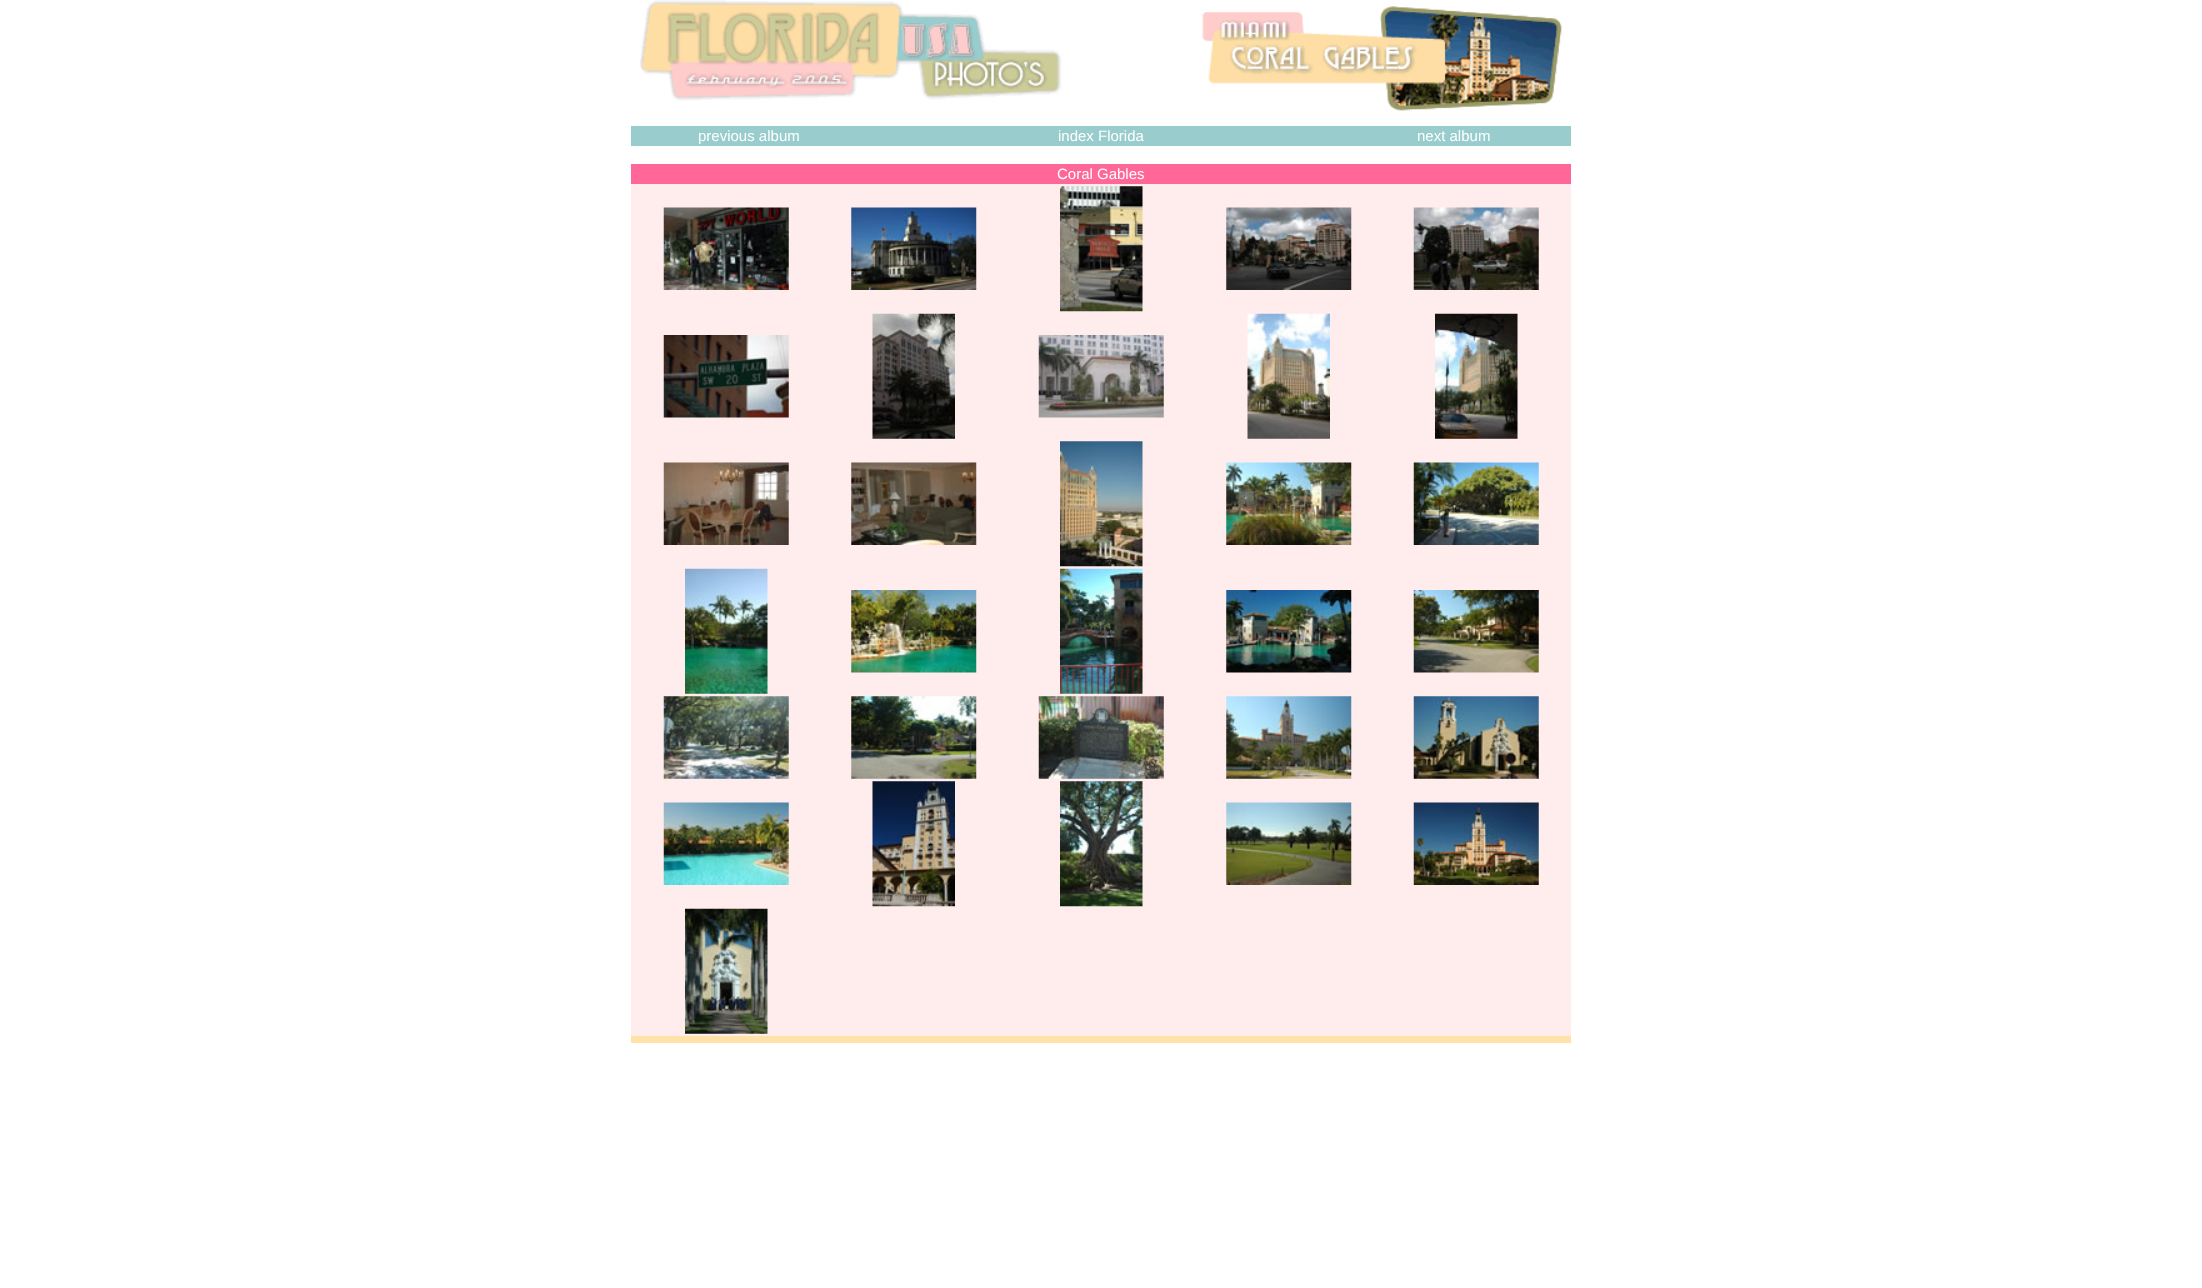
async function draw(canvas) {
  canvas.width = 2202
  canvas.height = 1288
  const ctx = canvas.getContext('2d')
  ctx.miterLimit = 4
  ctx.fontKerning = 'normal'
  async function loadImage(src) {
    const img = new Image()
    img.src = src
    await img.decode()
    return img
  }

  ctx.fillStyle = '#fff'
  ctx.fillRect(0, 0, 2202, 1288)
  ctx.drawImage(await loadImage('image0.png'), 640, 0, 922, 111)
  ctx.fillStyle = '#9cc'
  ctx.fillRect(631, 126, 940, 20)
  ctx.font = '15px Liberation Sans'
  ctx.fillStyle = '#fff'
  ctx.fillText('previous album', 698, 141)
  ctx.fillText('index Florida', 1058, 141)
  ctx.fillText('next album', 1417, 141)
  ctx.fillStyle = '#ff6799'
  ctx.fillRect(631, 164, 940, 20)
  ctx.fillStyle = '#fff'
  ctx.fillText('Coral Gables', 1057, 179)
  ctx.fillStyle = '#ffecec'
  ctx.fillRect(631, 184, 940, 852)
  ctx.drawImage(await loadImage('image1.png'), 663, 207, 126, 83)
  ctx.drawImage(await loadImage('image2.png'), 851, 207, 126, 83)
  ctx.drawImage(await loadImage('image3.png'), 1060, 186, 83, 126)
  ctx.drawImage(await loadImage('image4.png'), 1226, 207, 126, 83)
  ctx.drawImage(await loadImage('image5.png'), 1413, 207, 126, 83)
  ctx.drawImage(await loadImage('image6.png'), 663, 335, 126, 83)
  ctx.drawImage(await loadImage('image7.png'), 872, 313, 83, 126)
  ctx.drawImage(await loadImage('image8.png'), 1038, 335, 126, 83)
  ctx.drawImage(await loadImage('image9.png'), 1247, 313, 83, 126)
  ctx.drawImage(await loadImage('image10.png'), 1435, 313, 83, 126)
  ctx.drawImage(await loadImage('image11.png'), 663, 462, 126, 83)
  ctx.drawImage(await loadImage('image12.png'), 851, 462, 126, 83)
  ctx.drawImage(await loadImage('image13.png'), 1060, 441, 83, 126)
  ctx.drawImage(await loadImage('image14.png'), 1226, 462, 126, 83)
  ctx.drawImage(await loadImage('image15.png'), 1413, 462, 126, 83)
  ctx.drawImage(await loadImage('image16.png'), 685, 568, 83, 126)
  ctx.drawImage(await loadImage('image17.png'), 851, 590, 126, 83)
  ctx.drawImage(await loadImage('image18.png'), 1060, 568, 83, 126)
  ctx.drawImage(await loadImage('image19.png'), 1226, 590, 126, 83)
  ctx.drawImage(await loadImage('image20.png'), 1413, 590, 126, 83)
  ctx.drawImage(await loadImage('image21.png'), 663, 696, 126, 83)
  ctx.drawImage(await loadImage('image22.png'), 851, 696, 126, 83)
  ctx.drawImage(await loadImage('image23.png'), 1038, 696, 126, 83)
  ctx.drawImage(await loadImage('image24.png'), 1226, 696, 126, 83)
  ctx.drawImage(await loadImage('image25.png'), 1413, 696, 126, 83)
  ctx.drawImage(await loadImage('image26.png'), 663, 802, 126, 83)
  ctx.drawImage(await loadImage('image27.png'), 872, 781, 83, 126)
  ctx.drawImage(await loadImage('image28.png'), 1060, 781, 83, 126)
  ctx.drawImage(await loadImage('image29.png'), 1226, 802, 126, 83)
  ctx.drawImage(await loadImage('image30.png'), 1413, 802, 126, 83)
  ctx.drawImage(await loadImage('image31.png'), 685, 908, 83, 126)
  ctx.fillStyle = '#ffe2a8'
  ctx.fillRect(631, 1036, 940, 7)
}

draw(document.querySelector('canvas'))
